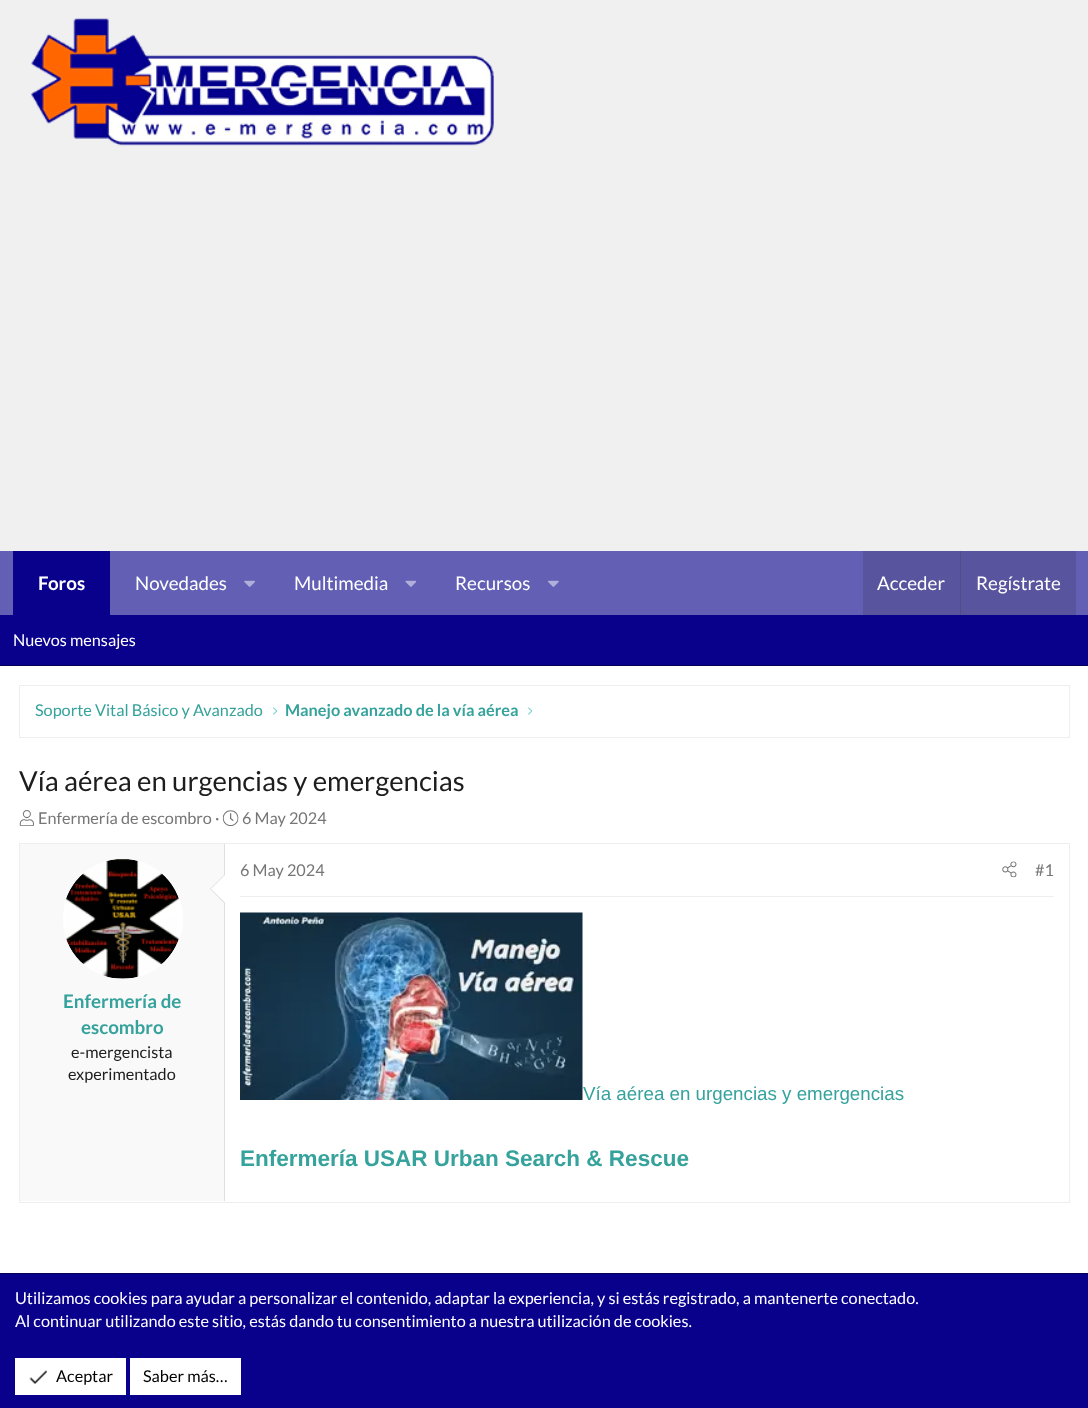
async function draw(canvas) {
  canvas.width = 1088
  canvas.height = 1408
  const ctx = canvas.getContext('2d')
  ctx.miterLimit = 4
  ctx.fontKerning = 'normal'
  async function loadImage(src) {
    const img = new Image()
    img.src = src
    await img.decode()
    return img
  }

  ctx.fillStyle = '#f0f0f0'
  ctx.fillRect(0, 0, 1088, 1408)
  ctx.drawImage(await loadImage('image0.png'), 31, 18, 463, 128)
  ctx.fillStyle = '#625fb5'
  ctx.fillRect(0, 551, 1088, 64)
  ctx.fillStyle = '#09008c'
  ctx.fillRect(13, 551, 97, 64)
  ctx.font = 'bold 18.75px Lato'
  ctx.fillStyle = '#fff'
  ctx.fillText('Foros', 38, 590)
  ctx.font = '18.75px Lato'
  ctx.fillText('Novedades', 135, 590)
  ctx.drawImage(await loadImage('image1.png'), 244, 580, 11, 7)
  ctx.fillText('Multimedia', 294, 590)
  ctx.drawImage(await loadImage('image2.png'), 405, 580, 11, 7)
  ctx.fillText('Recursos', 455, 590)
  ctx.drawImage(await loadImage('image3.png'), 548, 580, 11, 7)
  ctx.fillStyle = '#58559e'
  ctx.fillRect(863, 551, 213, 64)
  ctx.fillStyle = '#fff'
  ctx.fillText('Acceder', 877, 590)
  ctx.fillStyle = '#4f4d8b'
  ctx.fillRect(960, 551, 1, 64)
  ctx.fillStyle = '#fff'
  ctx.fillText('Regístrate', 976, 590)
  ctx.fillStyle = '#09008c'
  ctx.fillRect(0, 615, 1088, 50)
  ctx.fillStyle = '#060059'
  ctx.fillRect(0, 665, 1088, 1)
  ctx.font = '16.25px Lato'
  ctx.fillStyle = '#fff'
  ctx.fillText('Nuevos mensajes', 13, 646)
  ctx.fillRect(0, 666, 1088, 607)
  ctx.strokeStyle = '#eee'
  ctx.strokeRect(19.5, 685.5, 1050, 52)
  ctx.fillStyle = '#35a29c'
  ctx.fillText('Soporte Vital Básico y Avanzado', 35, 716)
  ctx.drawImage(await loadImage('image4.png'), 273, 707, 5, 8)
  ctx.font = 'bold 16.25px Lato'
  ctx.fillText('Manejo avanzado de la vía aérea', 285, 716)
  ctx.drawImage(await loadImage('image4.png'), 528, 707, 5, 8)
  ctx.font = '27.5px Lato'
  ctx.fillStyle = '#1d1d1d'
  ctx.fillText('Vía aérea en urgencias y emergencias', 19, 791)
  ctx.drawImage(await loadImage('image5.png'), 19, 810, 15, 16)
  ctx.font = '16.25px Lato'
  ctx.fillStyle = '#767676'
  ctx.fillText('Enfermería de escombro ·', 38, 824)
  ctx.drawImage(await loadImage('image6.png'), 222, 810, 17, 16)
  ctx.fillText('6 May 2024', 242, 824)
  ctx.strokeRect(19.5, 843.5, 1050, 359)
  ctx.fillStyle = '#f9f9f9'
  ctx.fillRect(20, 844, 204, 357)
  ctx.fillStyle = '#dfdfdf'
  ctx.fillRect(224, 844, 1, 357)
  ctx.fillStyle = '#fff'
  ctx.beginPath()
  ctx.arc(123, 919, 60, 0, 2 * Math.PI)
  ctx.fill()
  ctx.drawImage(await loadImage('image7.png'), 66, 859, 113, 120)
  ctx.fillStyle = '#dfdfdf'
  ctx.beginPath()
  ctx.moveTo(225, 874)
  ctx.lineTo(225, 904)
  ctx.lineTo(210, 889)
  ctx.closePath()
  ctx.fill()
  ctx.fillStyle = '#fff'
  ctx.beginPath()
  ctx.moveTo(225, 875)
  ctx.lineTo(225, 902.5)
  ctx.lineTo(211, 889)
  ctx.closePath()
  ctx.fill()
  ctx.font = 'bold 18.75px Lato'
  ctx.fillStyle = '#35a29c'
  ctx.fillText('Enfermería de', 63, 1008)
  ctx.fillText('escombro', 81, 1034)
  ctx.font = '16.25px Lato'
  ctx.fillStyle = '#1d1d1d'
  ctx.fillText('e-mergencista', 71, 1058)
  ctx.fillText('experimentado', 68, 1080)
  ctx.fillStyle = '#eee'
  ctx.fillRect(240, 896, 814, 1)
  ctx.fillStyle = '#767676'
  ctx.fillText('6 May 2024', 240, 876)
  ctx.drawImage(await loadImage('image8.png'), 1002, 861, 15, 17)
  ctx.fillText('#1', 1035, 876)
  ctx.drawImage(await loadImage('image9.png'), 240, 912, 343, 188)
  ctx.font = '18.75px Liberation Sans'
  ctx.fillStyle = '#35a29c'
  ctx.fillText('Vía aérea en urgencias y emergencias', 583, 1100)
  ctx.font = 'bold 22.5px Liberation Sans'
  ctx.fillText('Enfermería USAR Urban Search & Rescue', 240, 1166)
  ctx.fillStyle = '#09008c'
  ctx.fillRect(0, 1274, 1088, 134)
  ctx.fillStyle = '#060059'
  ctx.fillRect(0, 1273, 1088, 1)
  ctx.font = '16.25px Lato'
  ctx.fillStyle = '#fff'
  ctx.fillText('Utilizamos cookies para ayudar a personalizar el contenido, adaptar la experiencia, y si estás registrado, a mantenerte conectado.', 15, 1304)
  ctx.fillText('Al continuar utilizando este sitio, estás dando tu consentimiento a nuestra utilización de cookies.', 15, 1327)
  ctx.fillRect(15, 1358, 111, 37)
  ctx.drawImage(await loadImage('image10.png'), 29, 1370, 18, 14)
  ctx.fillStyle = '#000'
  ctx.fillText('Aceptar', 56, 1382)
  ctx.fillStyle = '#fff'
  ctx.fillRect(130, 1358, 111, 37)
  ctx.fillStyle = '#000'
  ctx.fillText('Saber más…', 143, 1382)
}

draw(document.querySelector('canvas'))
